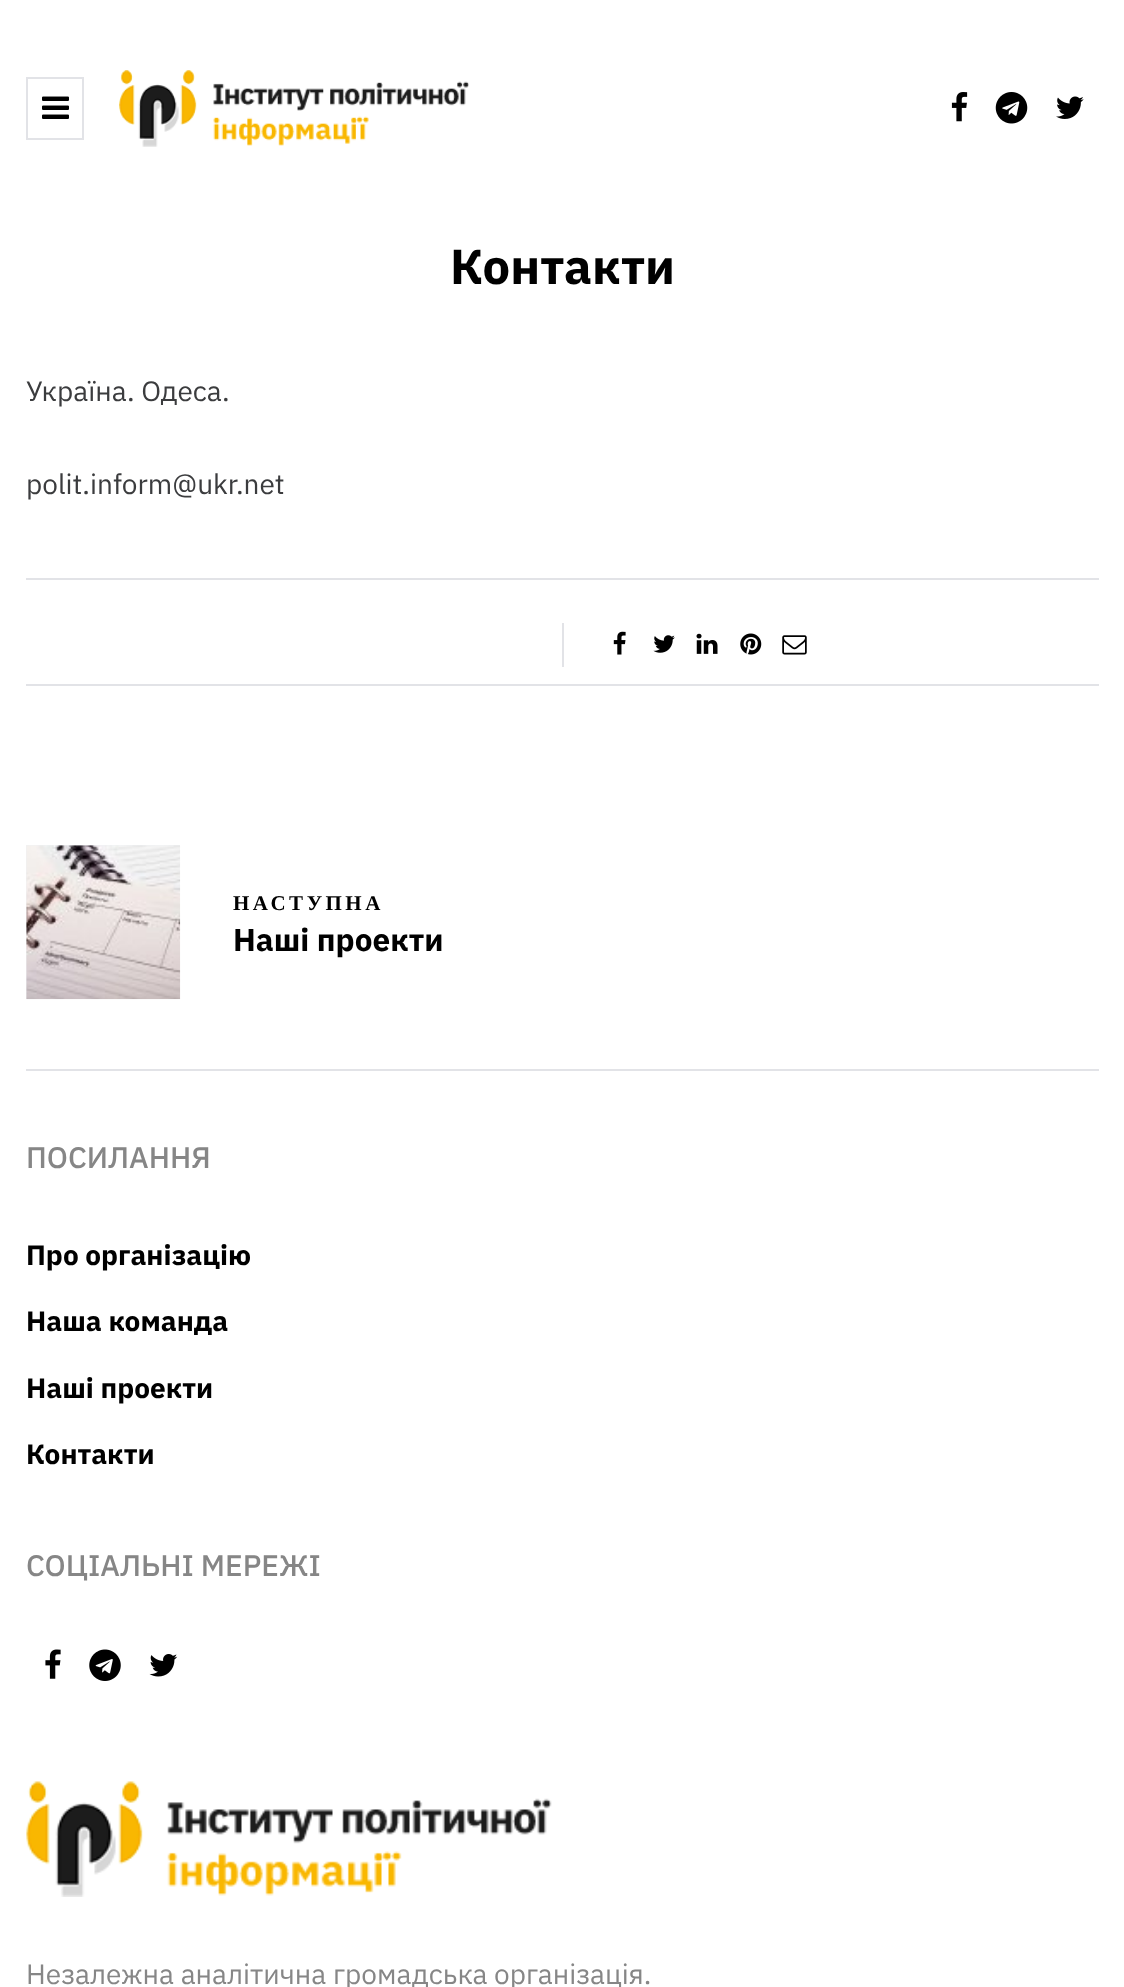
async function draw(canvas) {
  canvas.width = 1124
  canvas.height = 1987
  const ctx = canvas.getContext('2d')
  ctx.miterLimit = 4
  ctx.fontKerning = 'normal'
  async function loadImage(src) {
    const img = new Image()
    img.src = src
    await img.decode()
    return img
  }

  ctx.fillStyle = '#fff'
  ctx.fillRect(0, 0, 1124, 1987)
  ctx.strokeStyle = '#e2e3e7'
  ctx.lineWidth = 2
  ctx.strokeRect(27, 78, 56, 61)
  ctx.drawImage(await loadImage('image0.png'), 42, 96, 27, 23)
  ctx.drawImage(await loadImage('image1.png'), 119, 70, 350, 77)
  ctx.drawImage(await loadImage('image2.png'), 951, 92, 17, 30)
  ctx.drawImage(await loadImage('image3.png'), 995, 92, 33, 32)
  ctx.drawImage(await loadImage('image4.png'), 1056, 96, 28, 23)
  ctx.font = 'bold 49px IBM Plex Sans'
  ctx.fillStyle = '#000'
  ctx.fillText('Контакти', 450, 284)
  ctx.font = '28px IBM Plex Sans'
  ctx.fillStyle = '#3b3c3e'
  ctx.fillText('Україна. Одеса.', 26, 401)
  ctx.fillText('polit.inform@ukr.net', 26, 494)
  ctx.fillStyle = '#e2e3e7'
  ctx.fillRect(26, 578, 1073, 2)
  ctx.fillRect(26, 684, 1073, 2)
  ctx.fillRect(562, 623, 2, 44)
  ctx.drawImage(await loadImage('image5.png'), 613, 631, 13, 24)
  ctx.drawImage(await loadImage('image6.png'), 653, 635, 22, 18)
  ctx.drawImage(await loadImage('image7.png'), 696, 633, 22, 21)
  ctx.drawImage(await loadImage('image8.png'), 740, 633, 22, 22)
  ctx.drawImage(await loadImage('image9.png'), 782, 635, 25, 20)
  ctx.fillStyle = '#eff0f4'
  ctx.fillRect(26, 845, 154, 154)
  ctx.drawImage(await loadImage('image10.png'), 26, 845, 155, 155)
  ctx.letterSpacing = '3.5px'
  ctx.font = 'bold 21px Liberation Serif'
  ctx.fillStyle = '#000'
  ctx.fillText('НАСТУПНА', 233, 910)
  ctx.letterSpacing = '0px'
  ctx.font = 'bold 31.5px IBM Plex Sans'
  ctx.fillText('Наші проекти', 233, 951)
  ctx.fillStyle = '#e2e3e7'
  ctx.fillRect(26, 1069, 1073, 2)
  ctx.font = '500 29.75px IBM Plex Sans'
  ctx.fillStyle = '#868686'
  ctx.fillText('ПОСИЛАННЯ', 26, 1168)
  ctx.font = 'bold 28px IBM Plex Sans'
  ctx.fillStyle = '#000'
  ctx.fillText('Про організацію', 26, 1265)
  ctx.fillText('Наша команда', 26, 1331)
  ctx.fillText('Наші проекти', 26, 1398)
  ctx.fillText('Контакти', 26, 1464)
  ctx.font = '500 29.75px IBM Plex Sans'
  ctx.fillStyle = '#868686'
  ctx.fillText('СОЦІАЛЬНІ МЕРЕЖІ', 26, 1576)
  ctx.drawImage(await loadImage('image11.png'), 45, 1649, 16, 30)
  ctx.drawImage(await loadImage('image12.png'), 89, 1649, 32, 32)
  ctx.drawImage(await loadImage('image13.png'), 149, 1654, 29, 23)
  ctx.drawImage(await loadImage('image14.png'), 26, 1781, 526, 116)
  ctx.font = '28px IBM Plex Sans'
  ctx.fillText('Незалежна аналітична громадська організація.', 26, 1984)
}

draw(document.querySelector('canvas'))
